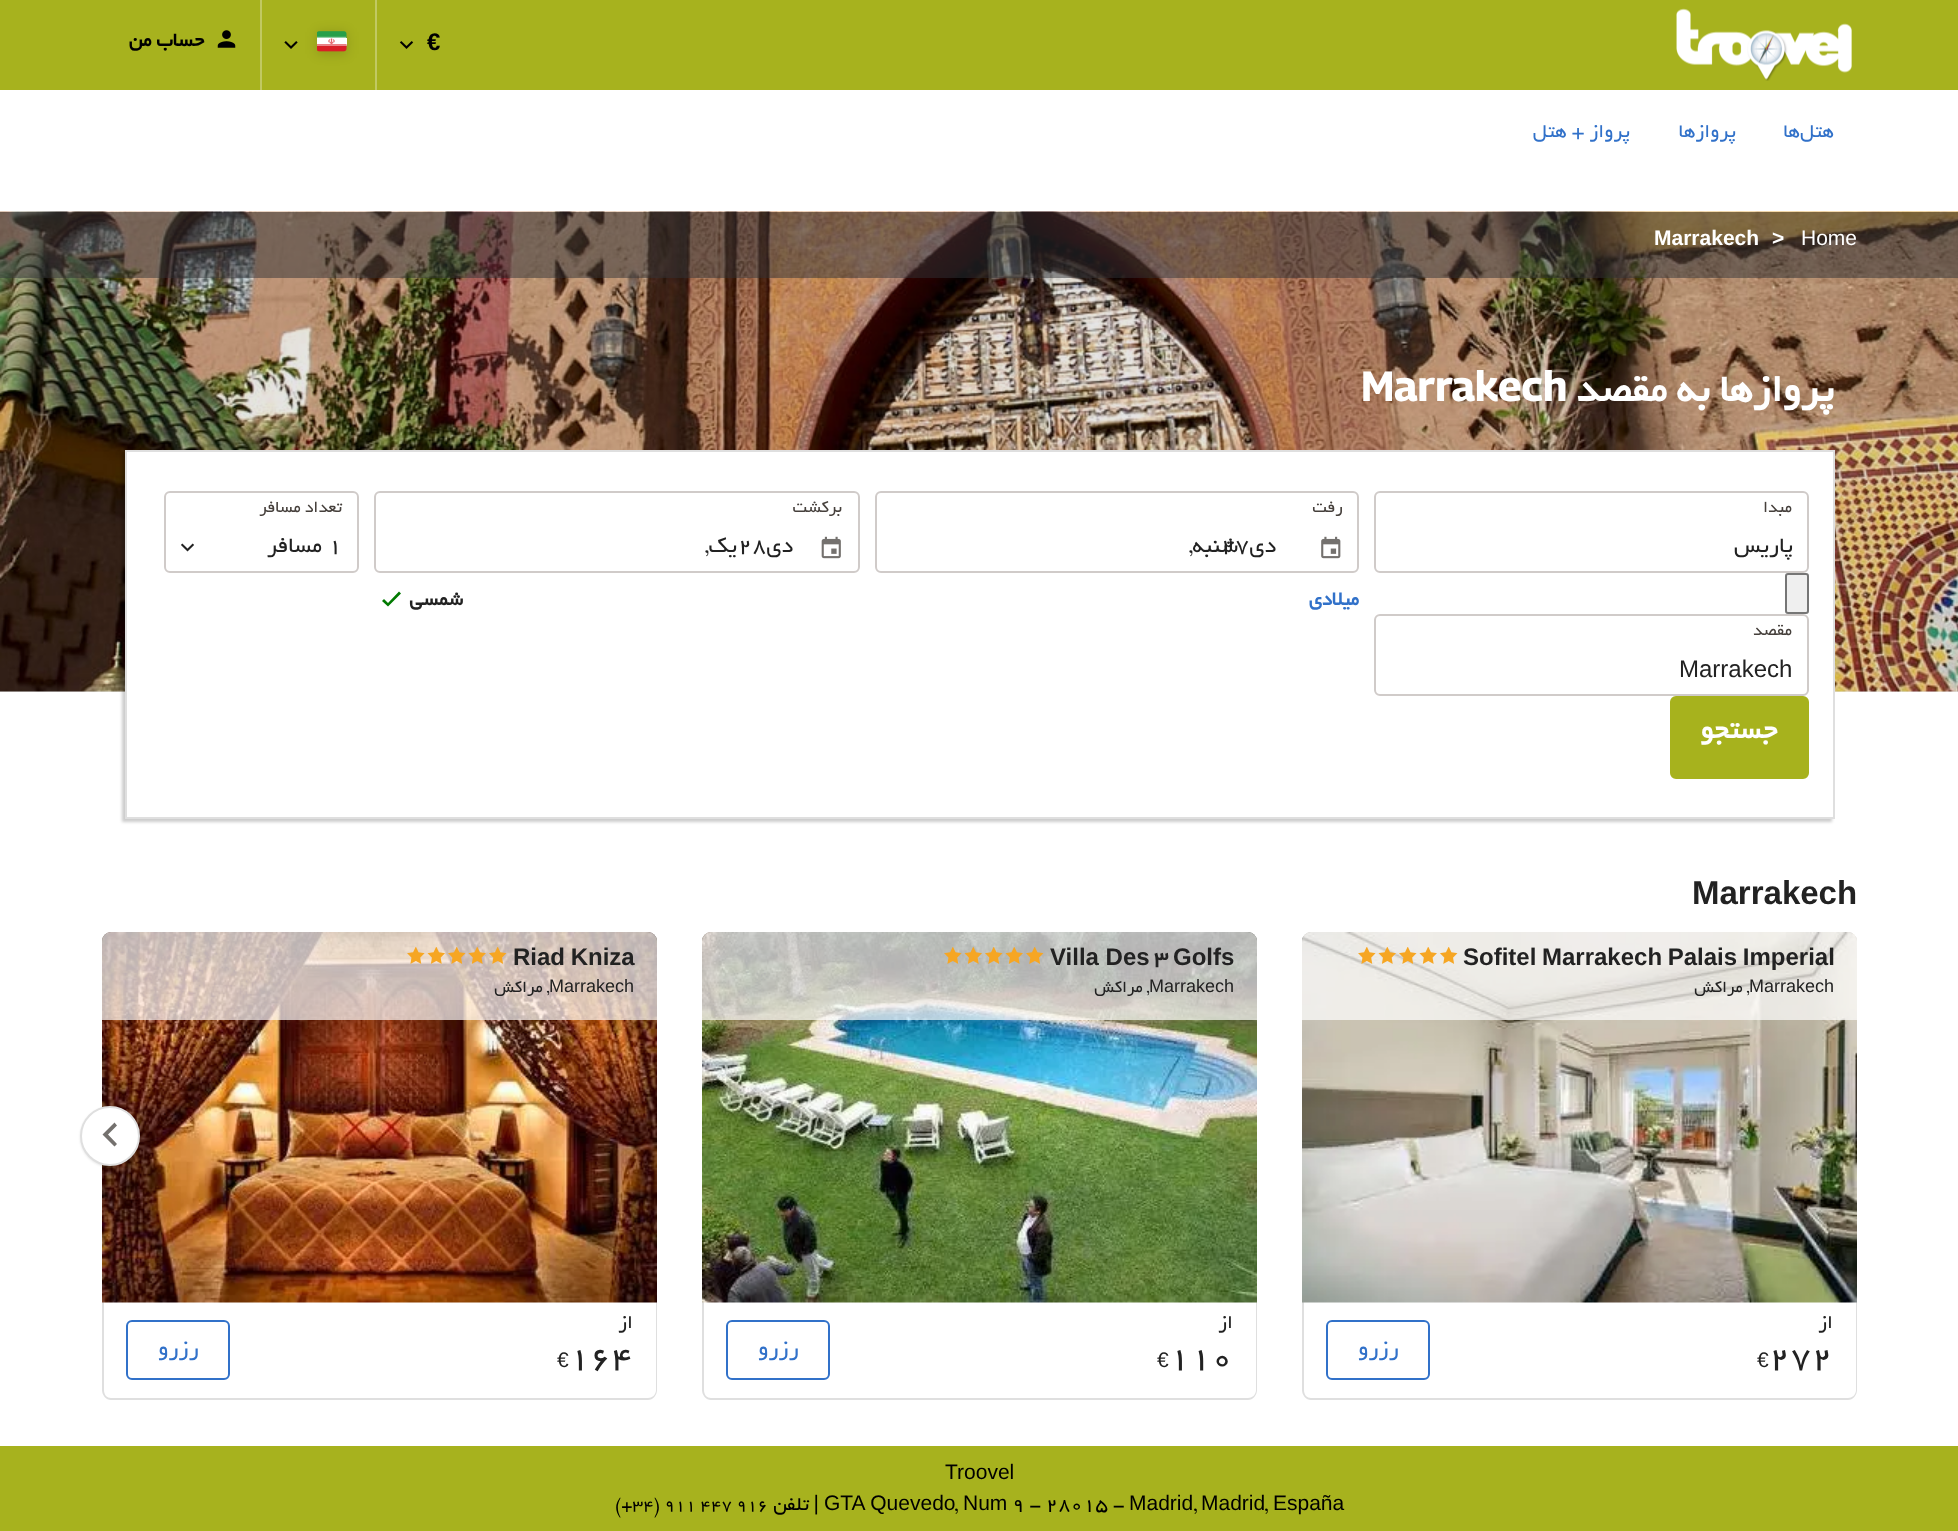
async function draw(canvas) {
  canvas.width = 1958
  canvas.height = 1531
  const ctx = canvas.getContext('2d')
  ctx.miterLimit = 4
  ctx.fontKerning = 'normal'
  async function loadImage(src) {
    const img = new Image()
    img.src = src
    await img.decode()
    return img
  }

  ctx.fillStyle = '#fff'
  ctx.fillRect(0, 0, 1958, 1531)
  ctx.fillStyle = '#e6e6e6'
  ctx.fillRect(0, 691, 1958, 1)
  ctx.fillStyle = '#a7b21e'
  ctx.fillRect(0, 0, 1958, 90)
  ctx.direction = 'rtl'
  ctx.font = 'bold 21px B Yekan'
  ctx.fillStyle = '#000'
  ctx.fillText('حساب من', 204, 46)
  ctx.drawImage(await loadImage('image0.png'), 217, 30, 19, 18)
  ctx.fillStyle = '#c1c962'
  ctx.fillRect(260, 0, 2, 90)
  ctx.drawImage(await loadImage('image1.png'), 284, 41, 14, 8)
  ctx.fillStyle = '#00000026'
  ctx.filter = 'blur(6px)'
  ctx.beginPath()
  ctx.rect(317, 32, 30, 22)
  ctx.fill()
  ctx.filter = 'none'
  ctx.drawImage(await loadImage('image2.png'), 317, 31, 30, 21)
  ctx.fillStyle = '#c1c962'
  ctx.fillRect(375, 0, 2, 90)
  ctx.drawImage(await loadImage('image3.png'), 399, 41, 15, 8)
  ctx.direction = 'ltr'
  ctx.font = 'bold 24px Liberation Sans'
  ctx.fillStyle = '#000'
  ctx.fillText('€', 427, 50)
  ctx.drawImage(await loadImage('image4.png'), 1676, 8, 176, 73)
  ctx.direction = 'rtl'
  ctx.font = '21px B Yekan'
  ctx.fillStyle = '#3171c9'
  ctx.fillText('پرواز + هتل', 1630, 137)
  ctx.fillText('پروازها', 1736, 137)
  ctx.fillText('هتل‌ها', 1834, 137)
  ctx.drawImage(await loadImage('image5.png'), 0, 211, 1958, 481)
  ctx.fillStyle = '#30323580'
  ctx.fillRect(0, 212, 1958, 66)
  ctx.direction = 'ltr'
  ctx.font = 'bold 21px Liberation Sans'
  ctx.fillStyle = '#fff'
  ctx.fillText('Marrakech', 1654, 245)
  ctx.fillText('>', 1772, 245)
  ctx.font = '21px Liberation Sans'
  ctx.fillText('Home', 1801, 245)
  ctx.font = 'bold 42px Georama'
  ctx.fillText('Marrakech', 1361, 401)
  ctx.direction = 'rtl'
  ctx.font = 'bold 42px B Yekan'
  ctx.fillText('پروازها به مقصد', 1834, 401)
  ctx.fillStyle = '#00000033'
  ctx.filter = 'blur(1.5px)'
  ctx.beginPath()
  ctx.rect(122, 453, 1710, 369)
  ctx.fill()
  ctx.filter = 'none'
  ctx.fillStyle = '#fff'
  ctx.beginPath()
  ctx.rect(126, 451, 1708, 367)
  ctx.fill()
  ctx.strokeStyle = '#dfdfdf'
  ctx.lineWidth = 2
  ctx.stroke()
  ctx.beginPath()
  ctx.roundRect(165, 492, 193, 80, 5)
  ctx.strokeStyle = '#d0cbc9'
  ctx.stroke()
  ctx.font = '18px B Yekan'
  ctx.fillStyle = '#46403c'
  ctx.fillText('تعداد مسافر', 342, 512)
  ctx.drawImage(await loadImage('image6.png'), 181, 543, 13, 9)
  ctx.font = '24px B Yekan'
  ctx.fillStyle = '#222'
  ctx.fillText('مسافر', 322, 552)
  ctx.direction = 'ltr'
  ctx.fillText('1', 328, 552)
  ctx.drawImage(await loadImage('image7.png'), 821, 536, 20, 23)
  ctx.beginPath()
  ctx.roundRect(375, 492, 484, 80, 5)
  ctx.stroke()
  ctx.direction = 'rtl'
  ctx.font = '18px B Yekan'
  ctx.fillStyle = '#46403c'
  ctx.fillText('بركشت', 842, 512)
  ctx.font = '24px B Yekan'
  ctx.fillStyle = '#222'
  ctx.fillText('یک,', 737, 552)
  ctx.direction = 'ltr'
  ctx.fillText('28', 738, 552)
  ctx.direction = 'rtl'
  ctx.fillText('دی', 793, 552)
  ctx.drawImage(await loadImage('image8.png'), 1321, 536, 20, 23)
  ctx.beginPath()
  ctx.roundRect(876, 492, 482, 80, 5)
  ctx.stroke()
  ctx.font = '18px B Yekan'
  ctx.fillStyle = '#46403c'
  ctx.fillText('رفت', 1343, 512)
  ctx.font = '24px B Yekan'
  ctx.fillStyle = '#222'
  ctx.fillText('شنبه,', 1238, 552)
  ctx.direction = 'ltr'
  ctx.fillText('27', 1221, 552)
  ctx.direction = 'rtl'
  ctx.fillText('دی', 1276, 552)
  ctx.fillStyle = '#027a02'
  ctx.beginPath()
  ctx.moveTo(382, 601)
  ctx.lineTo(384, 599)
  ctx.lineTo(388, 603)
  ctx.lineTo(399, 591.5)
  ctx.lineTo(401, 593.5)
  ctx.lineTo(388, 606.5)
  ctx.closePath()
  ctx.fill('evenodd')
  ctx.font = 'bold 21px B Yekan'
  ctx.fillStyle = '#222'
  ctx.fillText('شمسى', 463, 605)
  ctx.fillStyle = '#3171c9'
  ctx.fillText('ميلادى', 1359, 605)
  ctx.beginPath()
  ctx.roundRect(1375, 492, 433, 80, 5)
  ctx.stroke()
  ctx.font = '18px B Yekan'
  ctx.fillStyle = '#46403c'
  ctx.fillText('مبدا', 1792, 512)
  ctx.font = '24px B Yekan'
  ctx.fillStyle = '#222'
  ctx.fillText('پاریس', 1793, 552)
  ctx.fillStyle = '#efefef'
  ctx.beginPath()
  ctx.roundRect(1786, 574, 22, 39, 2)
  ctx.fill()
  ctx.strokeStyle = '#767676'
  ctx.stroke()
  ctx.beginPath()
  ctx.roundRect(1375, 615, 433, 80, 5)
  ctx.strokeStyle = '#d0cbc9'
  ctx.stroke()
  ctx.font = '18px B Yekan'
  ctx.fillStyle = '#46403c'
  ctx.fillText('مقصد', 1792, 635)
  ctx.direction = 'ltr'
  ctx.font = '24px Liberation Sans'
  ctx.fillStyle = '#222'
  ctx.fillText('Marrakech', 1679, 677)
  ctx.fillStyle = '#a7b21d'
  ctx.beginPath()
  ctx.roundRect(1671, 697, 137, 81, 5)
  ctx.fill()
  ctx.strokeStyle = '#a7b21d'
  ctx.stroke()
  ctx.direction = 'rtl'
  ctx.font = 'bold 30px B Yekan'
  ctx.fillStyle = '#fff'
  ctx.fillText('جستجو', 1777, 738)
  ctx.direction = 'ltr'
  ctx.font = 'bold 33px Liberation Sans'
  ctx.fillStyle = '#222'
  ctx.fillText('Marrakech', 1692, 904)
  ctx.fillStyle = '#dfdfdf'
  ctx.beginPath()
  ctx.moveTo(102, 1302)
  ctx.lineTo(657, 1302)
  ctx.lineTo(657, 1390)
  ctx.bezierCurveTo(657, 1395, 653, 1400, 648, 1400)
  ctx.lineTo(111, 1400)
  ctx.bezierCurveTo(106, 1400, 102, 1395, 102, 1390)
  ctx.closePath()
  ctx.moveTo(104, 1302)
  ctx.lineTo(656, 1302)
  ctx.lineTo(656, 1390)
  ctx.bezierCurveTo(656, 1395, 652, 1398, 648, 1398)
  ctx.lineTo(111, 1398)
  ctx.bezierCurveTo(107, 1398, 104, 1395, 104, 1390)
  ctx.closePath()
  ctx.fill('evenodd')
  ctx.drawImage(await loadImage('image9.png'), 102, 932, 555, 371)
  ctx.fillStyle = '#0000001a'
  ctx.filter = 'blur(1px)'
  ctx.beginPath()
  ctx.roundRect(80, 1107, 60, 60, 30)
  ctx.fill()
  ctx.filter = 'none'
  ctx.fillStyle = '#fff'
  ctx.beginPath()
  ctx.arc(110, 1136, 29, 0, 2 * Math.PI)
  ctx.fill()
  ctx.strokeStyle = '#dfdfdf'
  ctx.stroke()
  ctx.fillStyle = '#74716e'
  ctx.beginPath()
  ctx.moveTo(117, 1125.5)
  ctx.lineTo(108, 1134.5)
  ctx.lineTo(117, 1144)
  ctx.lineTo(114.5, 1146.5)
  ctx.lineTo(102.5, 1134.5)
  ctx.lineTo(114.5, 1122.5)
  ctx.closePath()
  ctx.fill('evenodd')
  ctx.fillStyle = '#ffffffb3'
  ctx.beginPath()
  ctx.roundRect(102, 932, 555, 88, [9, 9, 0, 0])
  ctx.fill()
  ctx.drawImage(await loadImage('image10.png'), 407, 947, 100, 17)
  ctx.wordSpacing = '-1px'
  ctx.font = 'bold 24px Liberation Sans'
  ctx.fillStyle = '#222'
  ctx.fillText('Riad Kniza', 513, 965)
  ctx.wordSpacing = '0px'
  ctx.direction = 'rtl'
  ctx.font = '18px B Yekan'
  ctx.fillText(', مراکش', 549, 992)
  ctx.direction = 'ltr'
  ctx.font = '18px Liberation Sans'
  ctx.fillText('Marrakech', 549, 992)
  ctx.beginPath()
  ctx.roundRect(127, 1321, 102, 58, 5)
  ctx.strokeStyle = '#3171c9'
  ctx.stroke()
  ctx.direction = 'rtl'
  ctx.font = '24px B Yekan'
  ctx.fillStyle = '#3171c9'
  ctx.fillText('رزرو', 199, 1355)
  ctx.font = '21px B Yekan'
  ctx.fillStyle = '#222'
  ctx.fillText('از', 633, 1328)
  ctx.direction = 'ltr'
  ctx.font = '21px Liberation Sans'
  ctx.fillText('€', 557, 1367)
  ctx.font = '36px B Yekan'
  ctx.fillText('164', 569, 1367)
  ctx.fillStyle = '#dfdfdf'
  ctx.beginPath()
  ctx.moveTo(702, 1302)
  ctx.lineTo(1257, 1302)
  ctx.lineTo(1257, 1390)
  ctx.bezierCurveTo(1257, 1395, 1253, 1400, 1248, 1400)
  ctx.lineTo(711, 1400)
  ctx.bezierCurveTo(706, 1400, 702, 1395, 702, 1390)
  ctx.closePath()
  ctx.moveTo(704, 1302)
  ctx.lineTo(1256, 1302)
  ctx.lineTo(1256, 1390)
  ctx.bezierCurveTo(1256, 1395, 1252, 1398, 1248, 1398)
  ctx.lineTo(711, 1398)
  ctx.bezierCurveTo(707, 1398, 704, 1395, 704, 1390)
  ctx.closePath()
  ctx.fill('evenodd')
  ctx.drawImage(await loadImage('image11.png'), 702, 932, 555, 371)
  ctx.fillStyle = '#ffffffb3'
  ctx.beginPath()
  ctx.roundRect(702, 932, 555, 88, [9, 9, 0, 0])
  ctx.fill()
  ctx.drawImage(await loadImage('image12.png'), 944, 947, 100, 17)
  ctx.font = 'bold 24px Liberation Sans'
  ctx.fillStyle = '#222'
  ctx.fillText('Villa Des', 1050, 965)
  ctx.font = 'bold 24px B Yekan'
  ctx.fillText('3', 1154, 965)
  ctx.font = 'bold 24px Liberation Sans'
  ctx.fillText('Golfs', 1173, 965)
  ctx.direction = 'rtl'
  ctx.font = '18px B Yekan'
  ctx.fillText(', مراکش', 1149, 992)
  ctx.direction = 'ltr'
  ctx.font = '18px Liberation Sans'
  ctx.fillText('Marrakech', 1149, 992)
  ctx.beginPath()
  ctx.roundRect(727, 1321, 102, 58, 5)
  ctx.stroke()
  ctx.direction = 'rtl'
  ctx.font = '24px B Yekan'
  ctx.fillStyle = '#3171c9'
  ctx.fillText('رزرو', 799, 1355)
  ctx.font = '21px B Yekan'
  ctx.fillStyle = '#222'
  ctx.fillText('از', 1233, 1328)
  ctx.direction = 'ltr'
  ctx.font = '21px Liberation Sans'
  ctx.fillText('€', 1157, 1367)
  ctx.font = '36px B Yekan'
  ctx.fillText('110', 1169, 1367)
  ctx.fillStyle = '#dfdfdf'
  ctx.beginPath()
  ctx.moveTo(1302, 1302)
  ctx.lineTo(1857, 1302)
  ctx.lineTo(1857, 1390)
  ctx.bezierCurveTo(1857, 1395, 1853, 1400, 1848, 1400)
  ctx.lineTo(1311, 1400)
  ctx.bezierCurveTo(1306, 1400, 1302, 1395, 1302, 1390)
  ctx.closePath()
  ctx.moveTo(1304, 1302)
  ctx.lineTo(1856, 1302)
  ctx.lineTo(1856, 1390)
  ctx.bezierCurveTo(1856, 1395, 1852, 1398, 1848, 1398)
  ctx.lineTo(1311, 1398)
  ctx.bezierCurveTo(1307, 1398, 1304, 1395, 1304, 1390)
  ctx.closePath()
  ctx.fill('evenodd')
  ctx.drawImage(await loadImage('image13.png'), 1302, 932, 555, 371)
  ctx.fillStyle = '#ffffffb3'
  ctx.beginPath()
  ctx.roundRect(1302, 932, 555, 88, [9, 9, 0, 0])
  ctx.fill()
  ctx.drawImage(await loadImage('image14.png'), 1358, 947, 100, 17)
  ctx.wordSpacing = '-1px'
  ctx.font = 'bold 24px Liberation Sans'
  ctx.fillStyle = '#222'
  ctx.fillText('Sofitel Marrakech Palais Imperial', 1463, 965)
  ctx.wordSpacing = '0px'
  ctx.direction = 'rtl'
  ctx.font = '18px B Yekan'
  ctx.fillText(', مراکش', 1749, 992)
  ctx.direction = 'ltr'
  ctx.font = '18px Liberation Sans'
  ctx.fillText('Marrakech', 1749, 992)
  ctx.beginPath()
  ctx.roundRect(1327, 1321, 102, 58, 5)
  ctx.stroke()
  ctx.direction = 'rtl'
  ctx.font = '24px B Yekan'
  ctx.fillStyle = '#3171c9'
  ctx.fillText('رزرو', 1399, 1355)
  ctx.font = '21px B Yekan'
  ctx.fillStyle = '#222'
  ctx.fillText('از', 1833, 1328)
  ctx.direction = 'ltr'
  ctx.font = '21px Liberation Sans'
  ctx.fillText('€', 1757, 1367)
  ctx.font = '36px B Yekan'
  ctx.fillText('272', 1769, 1367)
  ctx.fillStyle = '#a7b21e'
  ctx.fillRect(0, 1446, 1958, 85)
  ctx.font = '21px Liberation Sans'
  ctx.fillStyle = '#000'
  ctx.fillText('Troovel', 945, 1479)
  ctx.font = '18px B Yekan'
  ctx.fillText('(+34) 911 447 916', 615, 1510)
  ctx.direction = 'rtl'
  ctx.font = '21px B Yekan'
  ctx.fillText('تلفن', 809, 1510)
  ctx.font = '21px Liberation Sans'
  ctx.fillText('|', 819, 1510)
  ctx.direction = 'ltr'
  ctx.fillText('GTA Quevedo', 824, 1510)
  ctx.font = '21px B Yekan'
  ctx.fillText(',', 955, 1510)
  ctx.font = '21px Liberation Sans'
  ctx.fillText('Num', 963, 1510)
  ctx.font = '21px B Yekan'
  ctx.fillText('9 - 28015 -', 1012, 1510)
  ctx.font = '21px Liberation Sans'
  ctx.fillText('Madrid', 1129, 1510)
  ctx.font = '21px B Yekan'
  ctx.fillText(',', 1194, 1510)
  ctx.font = '21px Liberation Sans'
  ctx.fillText('Madrid', 1201, 1510)
  ctx.font = '21px B Yekan'
  ctx.fillText(',', 1265, 1510)
  ctx.font = '21px Liberation Sans'
  ctx.fillText('España', 1273, 1510)
}

draw(document.querySelector('canvas'))
